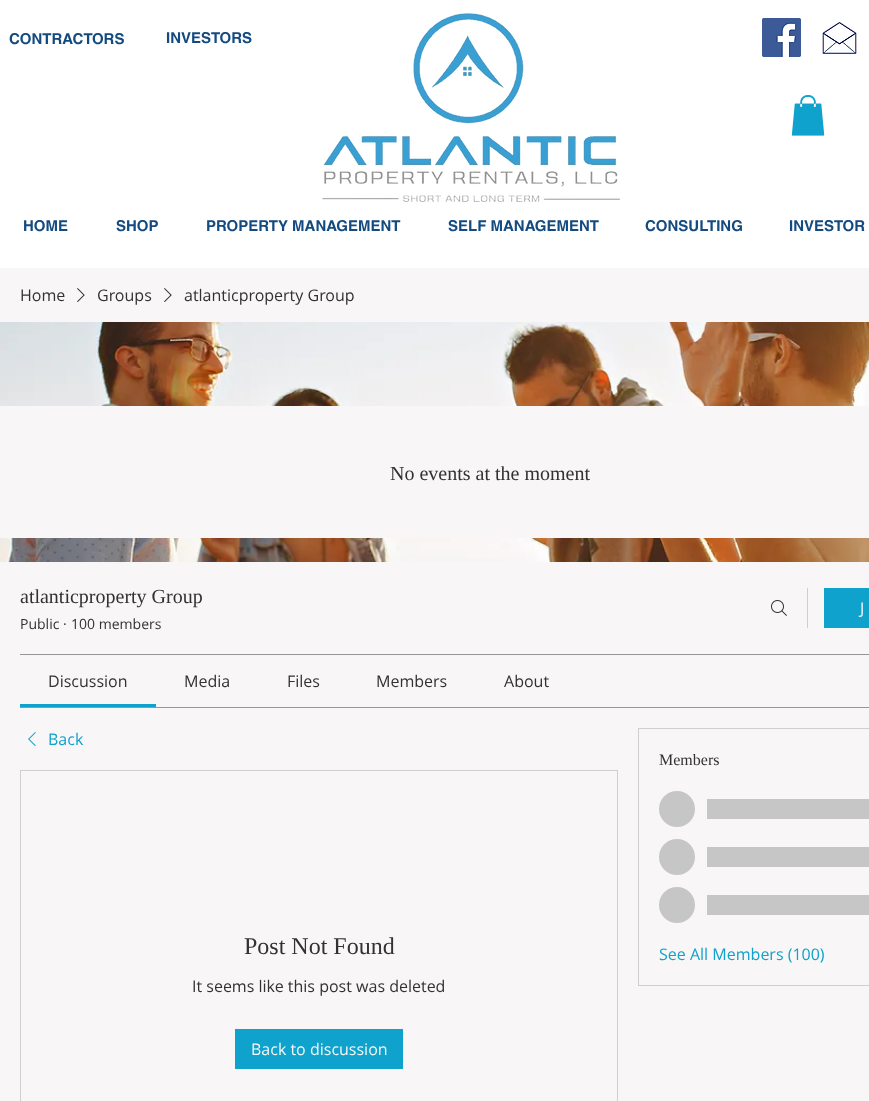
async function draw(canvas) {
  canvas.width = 869
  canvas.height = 1101
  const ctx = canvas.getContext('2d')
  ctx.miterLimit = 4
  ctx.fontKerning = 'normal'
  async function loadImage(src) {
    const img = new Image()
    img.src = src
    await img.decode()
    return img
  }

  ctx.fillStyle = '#fff'
  ctx.fillRect(0, 0, 869, 1101)
  ctx.font = 'bold 15px helvetica'
  ctx.fillStyle = '#134a80'
  ctx.fillText('CONTRACTORS', 9, 44)
  ctx.fillText('INVESTORS', 166, 43)
  ctx.drawImage(await loadImage('image0.png'), 322, 13, 298, 189)
  ctx.drawImage(await loadImage('image1.png'), 762, 18, 39, 39)
  ctx.drawImage(await loadImage('image2.png'), 822, 22, 35, 32)
  ctx.drawImage(await loadImage('image3.png'), 791, 95, 34, 41)
  ctx.fillText('HOME', 23, 231)
  ctx.fillText('SHOP', 116, 231)
  ctx.fillText('PROPERTY MANAGEMENT', 206, 231)
  ctx.fillText('SELF MANAGEMENT', 448, 231)
  ctx.fillText('CONSULTING', 645, 231)
  ctx.fillText('INVESTOR', 789, 231)
  ctx.fillStyle = '#f8f6f6'
  ctx.fillRect(0, 268, 869, 833)
  ctx.font = '16px Open Sans'
  ctx.fillStyle = '#323232'
  ctx.fillText('Home', 20, 301)
  ctx.drawImage(await loadImage('image4.png'), 77, 288, 8, 14)
  ctx.fillText('Groups', 97, 301)
  ctx.drawImage(await loadImage('image4.png'), 164, 288, 8, 14)
  ctx.fillText('atlanticproperty Group', 184, 301)
  ctx.drawImage(await loadImage('image5.png'), 0, 322, 869, 240)
  ctx.font = '20px Liberation Serif'
  ctx.fillText('atlanticproperty Group', 20, 603)
  ctx.font = '14px Open Sans'
  ctx.fillText('Public', 20, 629)
  ctx.fillText('·', 63, 629)
  ctx.fillText('100 members', 71, 629)
  ctx.drawImage(await loadImage('image6.png'), 771, 600, 16, 16)
  ctx.fillStyle = '#d0cfcf'
  ctx.fillRect(807, 588, 1, 40)
  ctx.fillStyle = '#0ea2cc'
  ctx.fillRect(824, 588, 45, 40)
  ctx.font = '16px Open Sans'
  ctx.fillStyle = '#f8f6f6'
  ctx.fillText('J', 860, 614)
  ctx.fillStyle = '#969696'
  ctx.fillRect(20, 654, 849, 1)
  ctx.fillRect(20, 707, 849, 1)
  ctx.fillStyle = '#0ea2cc'
  ctx.fillRect(20, 704, 136, 3)
  ctx.fillStyle = '#323232'
  ctx.fillText('Discussion', 48, 687)
  ctx.fillText('Media', 184, 687)
  ctx.fillText('Files', 287, 687)
  ctx.fillText('Members', 376, 687)
  ctx.fillText('About', 504, 687)
  ctx.drawImage(await loadImage('image7.png'), 28, 732, 8, 14)
  ctx.fillStyle = '#0ea2cc'
  ctx.fillText('Back', 48, 745)
  ctx.strokeStyle = '#d0cfcf'
  ctx.strokeRect(20.5, 770.5, 597, 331)
  ctx.font = '24px Liberation Serif'
  ctx.fillStyle = '#323232'
  ctx.fillText('Post Not Found', 244, 954)
  ctx.font = '16px Open Sans'
  ctx.fillText('It seems like this post was deleted', 192, 992)
  ctx.fillStyle = '#0ea2cc'
  ctx.fillRect(235, 1029, 168, 40)
  ctx.fillStyle = '#f8f6f6'
  ctx.fillText('Back to discussion', 251, 1055)
  ctx.strokeRect(638.5, 728.5, 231, 257)
  ctx.font = '16px Liberation Serif'
  ctx.fillStyle = '#323232'
  ctx.fillText('Members', 659, 765)
  ctx.fillStyle = '#c7c6c6'
  ctx.beginPath()
  ctx.arc(677, 809, 18, 0, 2 * Math.PI)
  ctx.fill()
  ctx.fillRect(707, 799, 162, 20)
  ctx.beginPath()
  ctx.arc(677, 857, 18, 0, 2 * Math.PI)
  ctx.fill()
  ctx.fillRect(707, 847, 162, 20)
  ctx.beginPath()
  ctx.arc(677, 905, 18, 0, 2 * Math.PI)
  ctx.fill()
  ctx.fillRect(707, 895, 162, 20)
  ctx.font = '16px Open Sans'
  ctx.fillStyle = '#0ea2cc'
  ctx.fillText('See All Members (100)', 659, 960)
  ctx.fillStyle = '#f8f6f6'
  ctx.fillRect(0, 406, 869, 132)
  ctx.font = '20px Liberation Serif'
  ctx.fillStyle = '#323232'
  ctx.fillText('No events at the moment', 390, 480)
}

draw(document.querySelector('canvas'))
